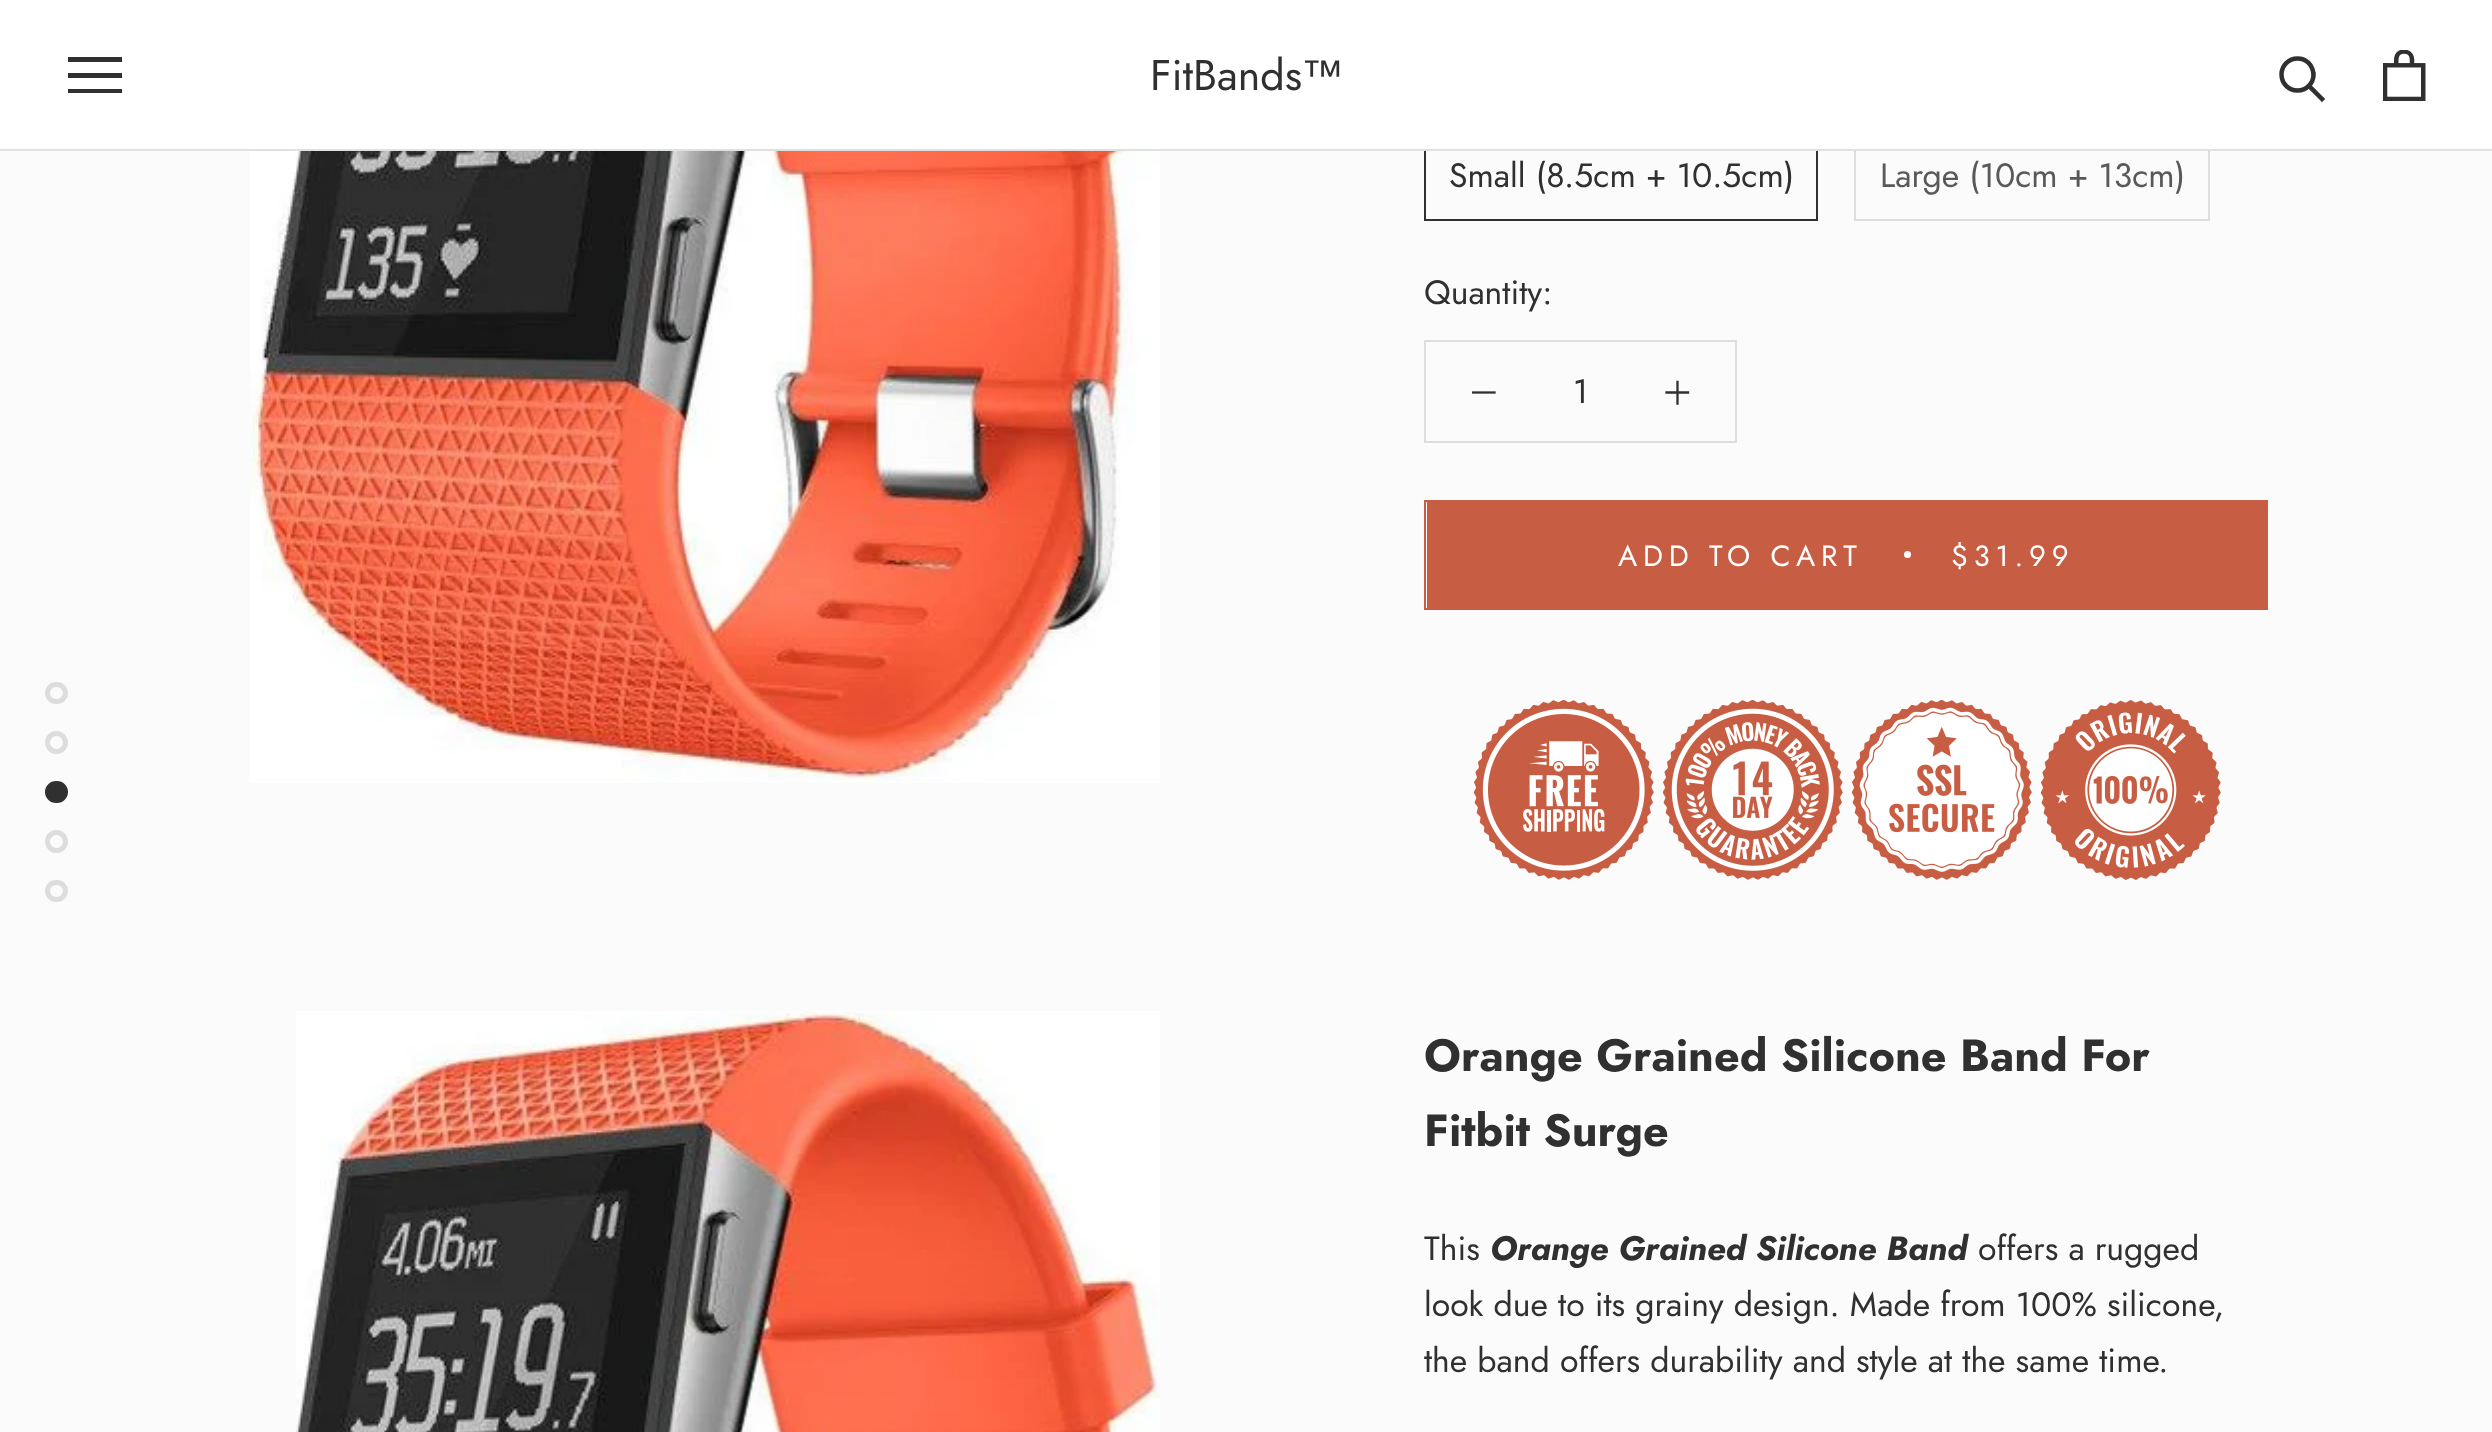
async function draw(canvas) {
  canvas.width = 2492
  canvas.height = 1432
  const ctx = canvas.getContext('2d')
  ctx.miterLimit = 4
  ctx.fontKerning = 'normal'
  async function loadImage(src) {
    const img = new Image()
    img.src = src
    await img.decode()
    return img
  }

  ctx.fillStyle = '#fbfbfb'
  ctx.fillRect(0, 0, 2492, 1432)
  ctx.strokeStyle = '#303030'
  ctx.lineWidth = 2
  ctx.strokeRect(1425, 134, 392, 86)
  ctx.strokeStyle = '#ddd'
  ctx.strokeRect(1855, 134, 354, 86)
  ctx.fillStyle = '#fff'
  ctx.fillRect(0, 0, 2492, 149)
  ctx.fillStyle = '#e0e0e0'
  ctx.fillRect(0, 149, 2492, 2)
  ctx.fillStyle = '#303030'
  ctx.beginPath()
  ctx.moveTo(68, 93)
  ctx.lineTo(68, 89)
  ctx.lineTo(122, 89)
  ctx.lineTo(122, 93)
  ctx.closePath()
  ctx.moveTo(68, 73)
  ctx.lineTo(122, 73)
  ctx.lineTo(122, 78)
  ctx.lineTo(68, 78)
  ctx.closePath()
  ctx.moveTo(68, 57)
  ctx.lineTo(122, 57)
  ctx.lineTo(122, 62)
  ctx.lineTo(68, 62)
  ctx.closePath()
  ctx.fill()
  ctx.font = '43px Jost'
  ctx.fillText('FitBands', 1150, 90)
  ctx.font = '43px Liberation Sans'
  ctx.fillText('™', 1301, 90)
  ctx.beginPath()
  ctx.moveTo(2322, 99)
  ctx.lineTo(2309, 86)
  ctx.strokeStyle = '#303030'
  ctx.lineWidth = 4.5
  ctx.lineCap = 'square'
  ctx.stroke()
  ctx.beginPath()
  ctx.arc(2297.5, 74.5, 16, 0, 2 * Math.PI)
  ctx.stroke()
  ctx.drawImage(await loadImage('image0.png'), 2383, 50, 43, 51)
  ctx.beginPath()
  ctx.roundRect(47.5, 684.5, 18, 17, 8.5)
  ctx.strokeStyle = '#ddd'
  ctx.lineWidth = 5
  ctx.stroke()
  ctx.beginPath()
  ctx.arc(56.5, 742.5, 9, 0, 2 * Math.PI)
  ctx.stroke()
  ctx.beginPath()
  ctx.roundRect(47.5, 783.5, 18, 17, 8.5)
  ctx.fill()
  ctx.strokeStyle = '#303030'
  ctx.stroke()
  ctx.beginPath()
  ctx.arc(56.5, 841.5, 9, 0, 2 * Math.PI)
  ctx.strokeStyle = '#ddd'
  ctx.stroke()
  ctx.beginPath()
  ctx.roundRect(47.5, 882.5, 18, 17, 8.5)
  ctx.stroke()
  ctx.drawImage(await loadImage('image1.png'), 250, 151, 910, 632)
  ctx.drawImage(await loadImage('image2.png'), 296, 1011, 864, 421)
  ctx.font = '33.75px Jost'
  ctx.fillText('Small (8.5cm + 10.5cm)', 1449, 187)
  ctx.fillStyle = '#595959'
  ctx.fillText('Large (10cm + 13cm)', 1880, 187)
  ctx.fillStyle = '#303030'
  ctx.fillText('Quantity:', 1424, 304)
  ctx.lineWidth = 2
  ctx.strokeRect(1425, 341, 311, 101)
  ctx.save()
  ctx.beginPath()
  ctx.rect(1472, 380, 24, 25)
  ctx.clip()
  ctx.beginPath()
  ctx.moveTo(1473, 392.5)
  ctx.lineTo(1494.5, 392.5)
  ctx.strokeStyle = '#303030'
  ctx.lineWidth = 2.3
  ctx.stroke()
  ctx.restore()
  ctx.fillText('1', 1573, 403)
  ctx.beginPath()
  ctx.moveTo(1677.5, 382)
  ctx.lineTo(1677.5, 403.5)
  ctx.moveTo(1666.5, 392.5)
  ctx.lineTo(1688, 392.5)
  ctx.strokeStyle = '#303030'
  ctx.lineWidth = 2.3
  ctx.stroke()
  ctx.strokeStyle = '#c75e43'
  ctx.lineWidth = 2
  ctx.strokeRect(1425, 501, 842, 108)
  ctx.fillStyle = '#c75e43'
  ctx.fillRect(1427, 502, 839, 106)
  ctx.letterSpacing = '5.8px'
  ctx.font = '29.25px Jost'
  ctx.fillStyle = '#fff'
  ctx.fillText('ADD TO CART', 1618, 566)
  ctx.beginPath()
  ctx.arc(1907.5, 554.5, 3.5, 0, 2 * Math.PI)
  ctx.fill()
  ctx.fillText('$31.99', 1951, 566)
  ctx.drawImage(await loadImage('image3.png'), 1474, 700, 180, 180)
  ctx.drawImage(await loadImage('image4.png'), 1663, 700, 180, 180)
  ctx.drawImage(await loadImage('image5.png'), 1852, 700, 180, 180)
  ctx.drawImage(await loadImage('image6.png'), 2041, 700, 180, 180)
  ctx.letterSpacing = '0px'
  ctx.font = 'bold 45px Jost'
  ctx.fillStyle = '#303030'
  ctx.fillText('Orange Grained Silicone Band For', 1424, 1071)
  ctx.fillText('Fitbit Surge', 1424, 1146)
  ctx.font = '33.75px Jost'
  ctx.fillText('This', 1424, 1260)
  ctx.font = 'italic bold 33.75px Jost'
  ctx.fillText('Orange Grained Silicone Band', 1490, 1260)
  ctx.font = '33.75px Jost'
  ctx.fillText('offers a rugged', 1978, 1260)
  ctx.fillText('look due to its grainy design. Made from 100% silicone,', 1424, 1316)
  ctx.fillText('the band offers durability and style at the same time.', 1424, 1372)
}

draw(document.querySelector('canvas'))
